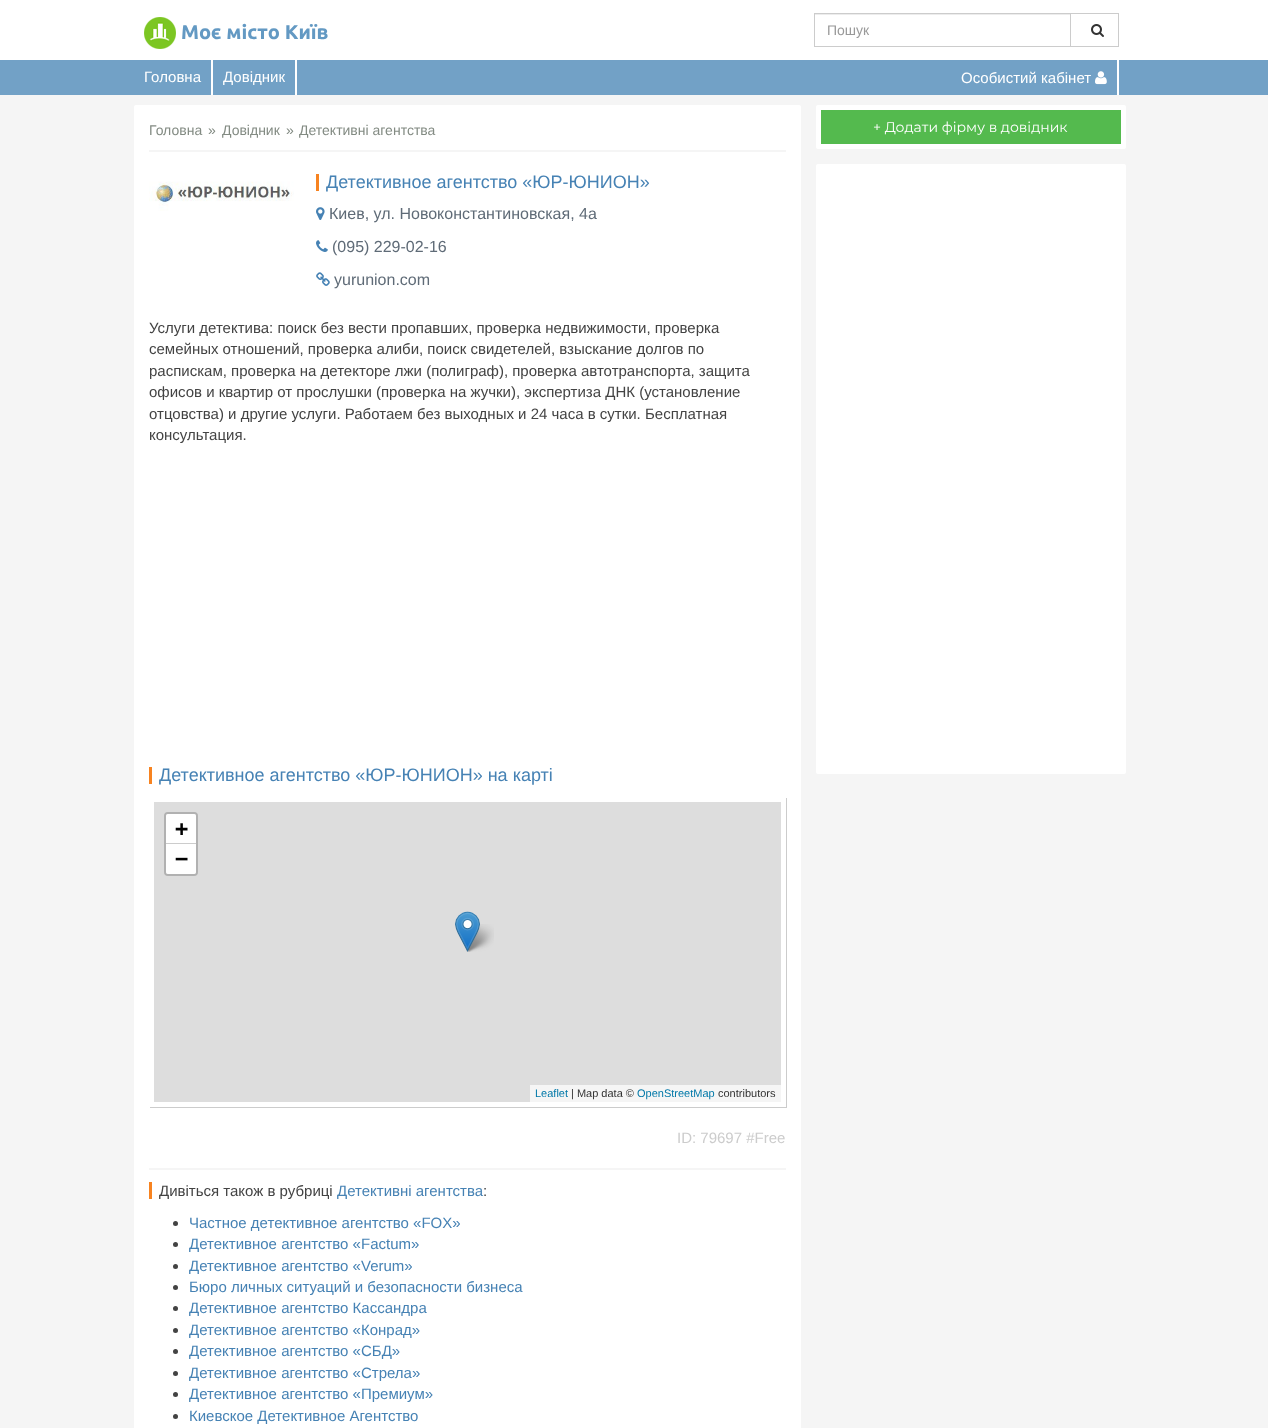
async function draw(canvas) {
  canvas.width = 1268
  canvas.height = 1428
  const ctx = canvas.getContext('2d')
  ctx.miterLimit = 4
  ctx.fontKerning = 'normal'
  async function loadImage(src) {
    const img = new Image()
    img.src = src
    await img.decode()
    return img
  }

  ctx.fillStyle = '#f5f5f5'
  ctx.fillRect(0, 0, 1268, 1428)
  ctx.fillStyle = '#fff'
  ctx.fillRect(0, 0, 1268, 60)
  ctx.drawImage(await loadImage('image0.png'), 144, 17, 32, 32)
  ctx.font = 'bold 20px Ubuntu'
  ctx.fillStyle = '#6399c3'
  ctx.fillText('Моє місто Київ', 181, 39)
  ctx.fillStyle = '#ececec'
  ctx.fillRect(815, 14, 255, 1)
  ctx.strokeStyle = '#ccc'
  ctx.strokeRect(1070.5, 13.5, 48, 33)
  ctx.strokeRect(814.5, 13.5, 256, 33)
  ctx.font = '14px Liberation Sans'
  ctx.fillStyle = '#999'
  ctx.fillText('Пошук', 827, 35)
  ctx.drawImage(await loadImage('image1.png'), 1091, 24, 13, 13)
  ctx.fillStyle = '#72a1c6'
  ctx.fillRect(0, 60, 1268, 35)
  ctx.fillStyle = '#fff'
  ctx.fillRect(211, 60, 2, 35)
  ctx.font = '15px Liberation Sans'
  ctx.fillText('Головна', 144, 82)
  ctx.fillRect(295, 60, 2, 35)
  ctx.fillText('Довідник', 223, 82)
  ctx.fillRect(1117, 60, 2, 35)
  ctx.fillText('Особистий кабінет', 961, 83)
  ctx.drawImage(await loadImage('image2.png'), 1095, 71, 12, 14)
  ctx.beginPath()
  ctx.roundRect(134, 105, 667, 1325, 2)
  ctx.fill()
  ctx.font = '14px Liberation Sans'
  ctx.fillStyle = '#838b83'
  ctx.fillText('Головна', 149, 135)
  ctx.fillText('»', 208, 135)
  ctx.fillText('Довідник', 222, 135)
  ctx.fillText('»', 286, 135)
  ctx.fillText('Детективні агентства', 299, 135)
  ctx.fillStyle = '#f5f5f5'
  ctx.fillRect(149, 150, 637, 2)
  ctx.drawImage(await loadImage('image3.png'), 149, 181, 145, 30)
  ctx.fillStyle = '#f78320'
  ctx.fillRect(316, 174, 3, 17)
  ctx.font = '18px Liberation Sans'
  ctx.fillStyle = '#4682b4'
  ctx.fillText('Детективное агентство «ЮР-ЮНИОН»', 326, 188)
  ctx.drawImage(await loadImage('image4.png'), 316, 207, 9, 13)
  ctx.font = '16px Liberation Sans'
  ctx.fillStyle = '#5f6b77'
  ctx.fillText('Киев, ул. Новоконстантиновская, 4а', 329, 219)
  ctx.drawImage(await loadImage('image5.png'), 316, 240, 12, 12)
  ctx.fillText('(095) 229-02-16', 332, 252)
  ctx.drawImage(await loadImage('image6.png'), 316, 272, 14, 14)
  ctx.fillText('yurunion.com', 334, 285)
  ctx.font = '15px Liberation Sans'
  ctx.fillStyle = '#434343'
  ctx.fillText('Услуги детектива: поиск без вести пропавших, проверка недвижимости, проверка', 149, 333)
  ctx.fillText('семейных отношений, проверка алиби, поиск свидетелей, взыскание долгов по', 149, 354)
  ctx.fillText('распискам, проверка на детекторе лжи (полиграф), проверка автотранспорта, защита', 149, 376)
  ctx.fillText('офисов и квартир от прослушки (проверка на жучки), экспертиза ДНК (установление', 149, 397)
  ctx.fillText('отцовства) и другие услуги. Работаем без выходных и 24 часа в сутки. Бесплатная', 149, 419)
  ctx.fillText('консультация.', 149, 440)
  ctx.fillStyle = '#f78320'
  ctx.fillRect(149, 767, 3, 17)
  ctx.font = '18px Liberation Sans'
  ctx.fillStyle = '#4682b4'
  ctx.fillText('Детективное агентство «ЮР-ЮНИОН» на карті', 159, 781)
  ctx.save()
  ctx.beginPath()
  ctx.moveTo(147, 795)
  ctx.lineTo(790, 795)
  ctx.lineTo(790, 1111)
  ctx.lineTo(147, 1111)
  ctx.closePath()
  ctx.moveTo(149, 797)
  ctx.lineTo(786, 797)
  ctx.lineTo(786, 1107)
  ctx.lineTo(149, 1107)
  ctx.closePath()
  ctx.clip('evenodd')
  ctx.fillStyle = '#ccc'
  ctx.filter = 'blur(0.5px)'
  ctx.beginPath()
  ctx.rect(150, 798, 637, 310)
  ctx.fill()
  ctx.filter = 'none'
  ctx.restore()
  ctx.fillStyle = '#ddd'
  ctx.fillRect(154, 802, 627, 300)
  ctx.beginPath()
  ctx.roundRect(165, 813, 32, 62, 3)
  ctx.strokeStyle = '#b1b1b1'
  ctx.lineWidth = 2
  ctx.stroke()
  ctx.fillStyle = '#fff'
  ctx.beginPath()
  ctx.roundRect(166, 814, 30, 30, [2, 2, 0, 0])
  ctx.fill()
  ctx.fillStyle = '#ccc'
  ctx.fillRect(166, 843, 30, 1)
  ctx.font = 'bold 22px DejaVu Sans Mono'
  ctx.fillStyle = '#000'
  ctx.fillText('+', 175, 836)
  ctx.fillStyle = '#fff'
  ctx.beginPath()
  ctx.roundRect(166, 844, 30, 30, [0, 0, 2, 2])
  ctx.fill()
  ctx.fillStyle = '#000'
  ctx.fillText('−', 175, 866)
  ctx.fillStyle = '#f5f5f5'
  ctx.fillRect(530, 1085, 251, 17)
  ctx.font = '11px Liberation Sans'
  ctx.fillStyle = '#0078a8'
  ctx.fillText('Leaflet', 535, 1097)
  ctx.fillStyle = '#333'
  ctx.fillText('| Map data ©', 571, 1097)
  ctx.fillStyle = '#0078a8'
  ctx.fillText('OpenStreetMap', 637, 1097)
  ctx.fillStyle = '#333'
  ctx.fillText('contributors', 718, 1097)
  ctx.drawImage(await loadImage('image8.png'), 465, 924, 29, 28)
  ctx.drawImage(await loadImage('image7.png'), 455, 911, 25, 41)
  ctx.font = '15px Liberation Sans'
  ctx.fillStyle = '#ccc'
  ctx.fillText('ID: 79697 #Free', 677, 1143)
  ctx.fillStyle = '#f5f5f5'
  ctx.fillRect(149, 1168, 637, 2)
  ctx.fillStyle = '#f78320'
  ctx.fillRect(149, 1182, 3, 17)
  ctx.fillStyle = '#434343'
  ctx.fillText('Дивіться також в рубриці', 159, 1196)
  ctx.fillStyle = '#4682b4'
  ctx.fillText('Детективні агентства', 337, 1196)
  ctx.fillStyle = '#434343'
  ctx.fillText(':', 483, 1196)
  ctx.beginPath()
  ctx.arc(175.5, 1223.5, 2.5, 0, 2 * Math.PI)
  ctx.fill()
  ctx.fillStyle = '#4682b4'
  ctx.fillText('Частное детективное агентство «FOX»', 189, 1228)
  ctx.fillStyle = '#434343'
  ctx.beginPath()
  ctx.arc(175.5, 1244.5, 2.5, 0, 2 * Math.PI)
  ctx.fill()
  ctx.fillStyle = '#4682b4'
  ctx.fillText('Детективное агентство «Factum»', 189, 1249)
  ctx.fillStyle = '#434343'
  ctx.beginPath()
  ctx.arc(175.5, 1266.5, 2.5, 0, 2 * Math.PI)
  ctx.fill()
  ctx.fillStyle = '#4682b4'
  ctx.fillText('Детективное агентство «Verum»', 189, 1271)
  ctx.fillStyle = '#434343'
  ctx.beginPath()
  ctx.arc(175.5, 1287.5, 2.5, 0, 2 * Math.PI)
  ctx.fill()
  ctx.fillStyle = '#4682b4'
  ctx.fillText('Бюро личных ситуаций и безопасности бизнеса', 189, 1292)
  ctx.fillStyle = '#434343'
  ctx.beginPath()
  ctx.arc(175.5, 1308.5, 2.5, 0, 2 * Math.PI)
  ctx.fill()
  ctx.fillStyle = '#4682b4'
  ctx.fillText('Детективное агентство Кассандра', 189, 1313)
  ctx.fillStyle = '#434343'
  ctx.beginPath()
  ctx.arc(175.5, 1330.5, 2.5, 0, 2 * Math.PI)
  ctx.fill()
  ctx.fillStyle = '#4682b4'
  ctx.fillText('Детективное агентство «Конрад»', 189, 1335)
  ctx.fillStyle = '#434343'
  ctx.beginPath()
  ctx.arc(175.5, 1351.5, 2.5, 0, 2 * Math.PI)
  ctx.fill()
  ctx.fillStyle = '#4682b4'
  ctx.fillText('Детективное агентство «СБД»', 189, 1356)
  ctx.fillStyle = '#434343'
  ctx.beginPath()
  ctx.arc(175.5, 1373.5, 2.5, 0, 2 * Math.PI)
  ctx.fill()
  ctx.fillStyle = '#4682b4'
  ctx.fillText('Детективное агентство «Стрела»', 189, 1378)
  ctx.fillStyle = '#434343'
  ctx.beginPath()
  ctx.arc(175.5, 1394.5, 2.5, 0, 2 * Math.PI)
  ctx.fill()
  ctx.fillStyle = '#4682b4'
  ctx.fillText('Детективное агентство «Премиум»', 189, 1399)
  ctx.fillStyle = '#434343'
  ctx.beginPath()
  ctx.arc(175.5, 1416.5, 2.5, 0, 2 * Math.PI)
  ctx.fill()
  ctx.fillStyle = '#4682b4'
  ctx.fillText('Киевское Детективное Агентство', 189, 1421)
  ctx.fillStyle = '#fff'
  ctx.beginPath()
  ctx.roundRect(816, 105, 310, 44, 2)
  ctx.fill()
  ctx.fillStyle = '#54ba4e'
  ctx.fillRect(821, 110, 300, 34)
  ctx.font = '14px Montserrat'
  ctx.fillStyle = '#fff'
  ctx.fillText('+ Додати фірму в довідник', 873, 132)
  ctx.beginPath()
  ctx.roundRect(816, 164, 310, 610, 2)
  ctx.fill()
}

draw(document.querySelector('canvas'))
